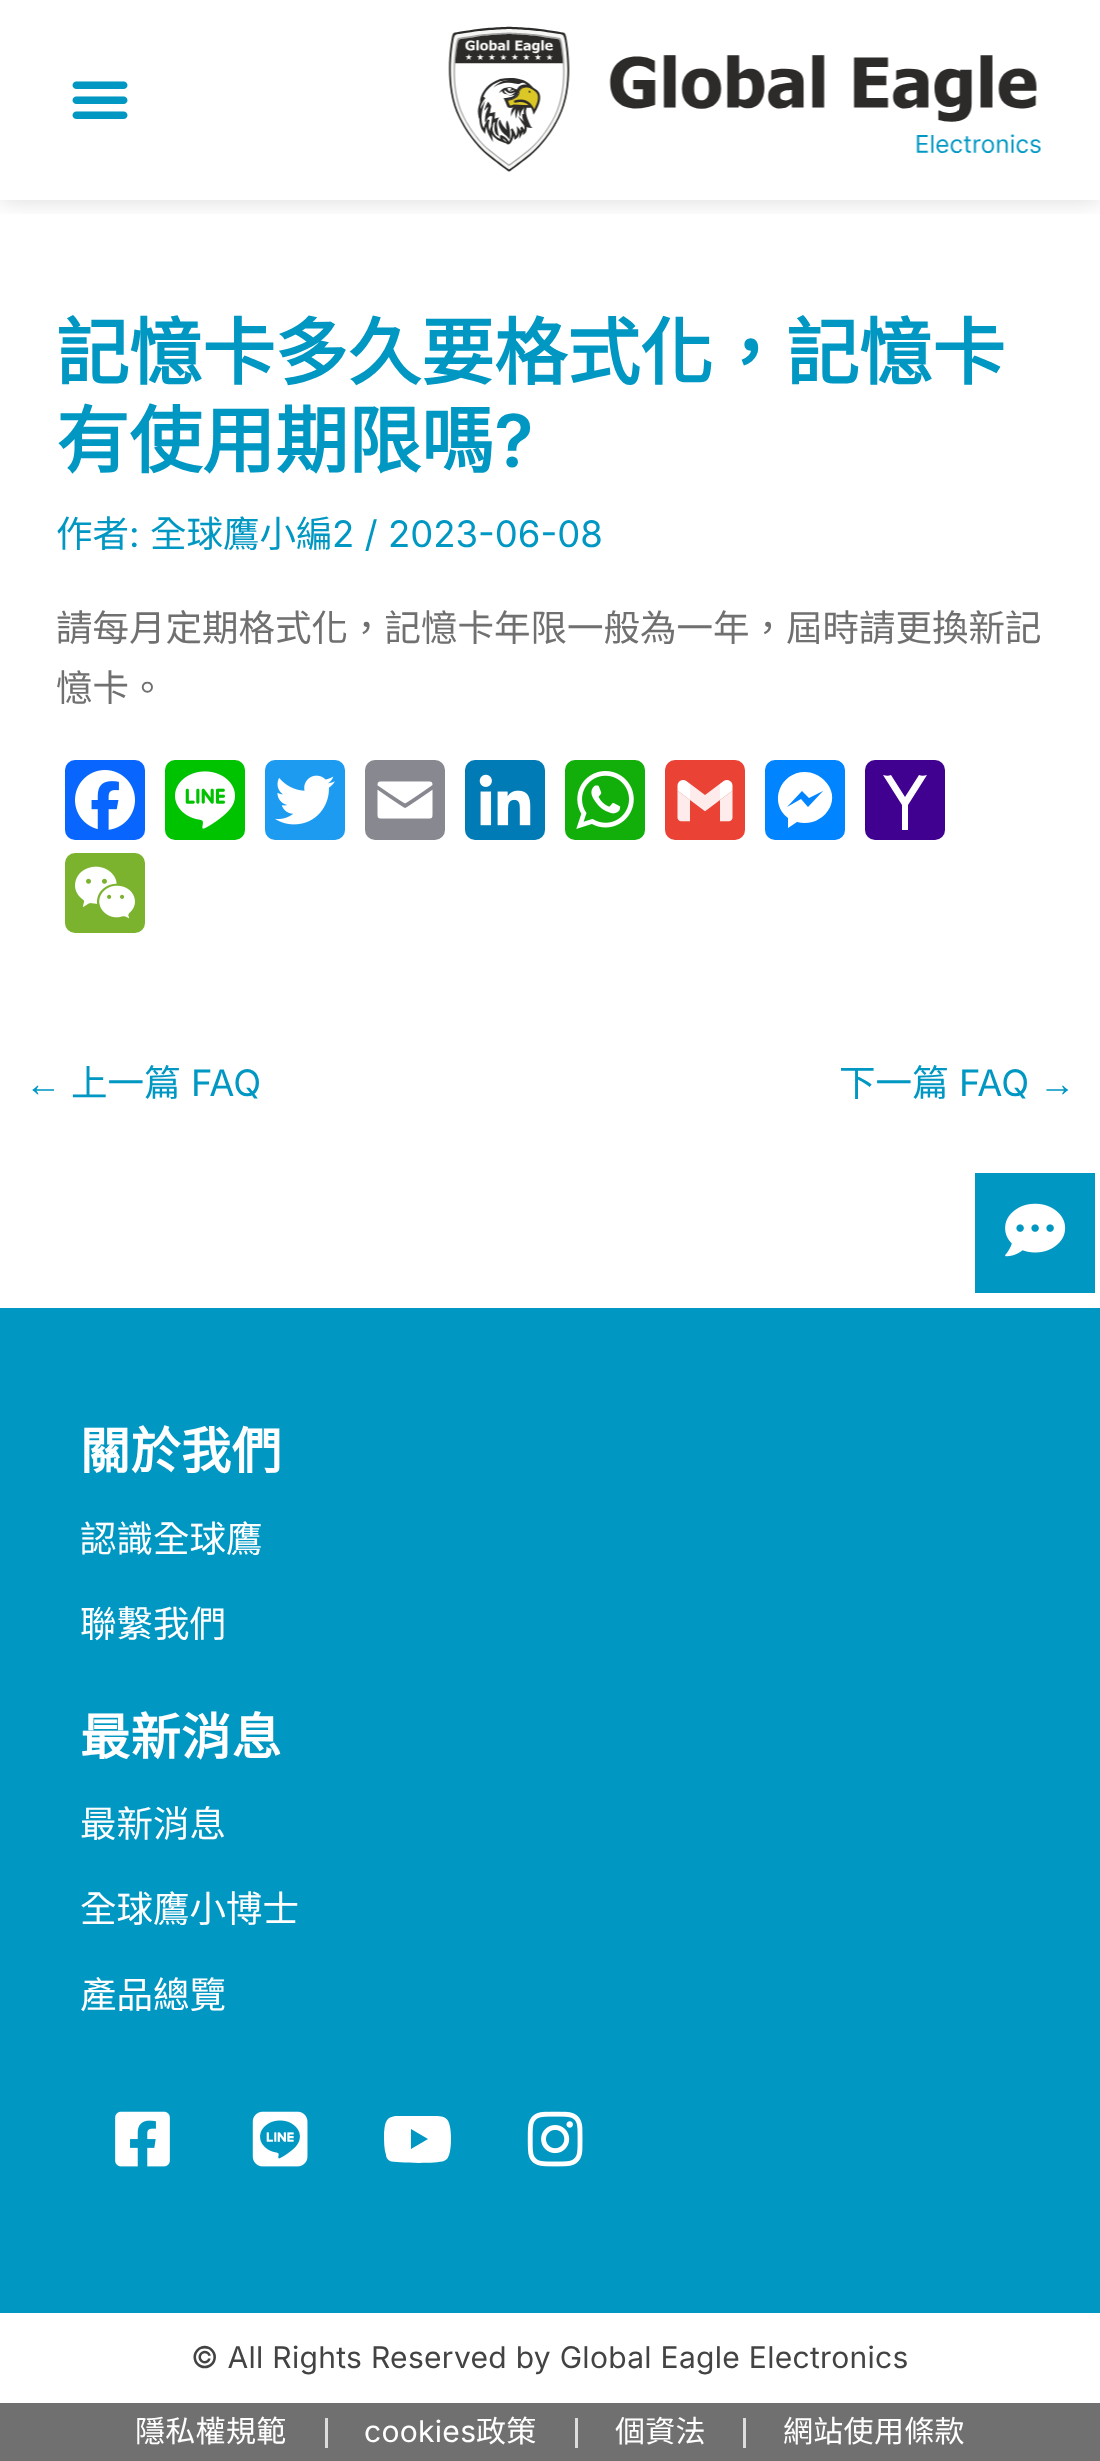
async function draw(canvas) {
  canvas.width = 1100
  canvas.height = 2461
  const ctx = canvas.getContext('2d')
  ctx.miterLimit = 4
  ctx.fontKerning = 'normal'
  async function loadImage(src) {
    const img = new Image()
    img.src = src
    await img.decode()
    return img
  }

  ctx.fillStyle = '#fff'
  ctx.fillRect(0, 0, 1100, 2461)
  ctx.save()
  ctx.beginPath()
  ctx.rect(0, 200, 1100, 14)
  ctx.clip()
  ctx.fillStyle = '#00000026'
  ctx.filter = 'blur(12.5px)'
  ctx.beginPath()
  ctx.rect(0, 0, 1100, 200)
  ctx.fill()
  ctx.filter = 'none'
  ctx.restore()
  ctx.drawImage(await loadImage('image0.png'), 72, 81, 56, 38)
  ctx.drawImage(await loadImage('image1.png'), 448, 26, 594, 146)
  ctx.font = 'bold 73px Noto Sans CJK TC'
  ctx.fillStyle = '#0097c3'
  ctx.fillText('記憶卡多久要格式化，記憶卡', 56, 379)
  ctx.fillText('有使用期限嗎', 56, 467)
  ctx.font = '600 73px Inter'
  ctx.fillText('?', 494, 467)
  ctx.font = '36.5px Noto Sans CJK TC'
  ctx.fillText('作者', 56, 547)
  ctx.font = '36.5px Inter'
  ctx.fillText(':', 129, 547)
  ctx.font = '36.5px Noto Sans CJK TC'
  ctx.fillText('全球鷹小編', 150, 547)
  ctx.font = '36.5px Inter'
  ctx.fillText('2 / 2023-06-08', 332, 547)
  ctx.font = '36.5px Noto Sans CJK TC'
  ctx.fillStyle = '#707070'
  ctx.fillText('請每月定期格式化，記憶卡年限一般為一年，屆時請更換新記', 56, 641)
  ctx.fillText('憶卡。', 56, 701)
  ctx.fillStyle = '#0866ff'
  ctx.beginPath()
  ctx.roundRect(65, 760, 80, 80, 10)
  ctx.fill()
  ctx.drawImage(await loadImage('image2.png'), 75, 770, 60, 60)
  ctx.fillStyle = '#00c300'
  ctx.beginPath()
  ctx.roundRect(165, 760, 80, 80, 10)
  ctx.fill()
  ctx.drawImage(await loadImage('image3.png'), 175, 771, 60, 58)
  ctx.fillStyle = '#1d9bf0'
  ctx.beginPath()
  ctx.roundRect(265, 760, 80, 80, 10)
  ctx.fill()
  ctx.drawImage(await loadImage('image4.png'), 275, 775, 60, 50)
  ctx.fillStyle = '#888990'
  ctx.beginPath()
  ctx.roundRect(365, 760, 80, 80, 10)
  ctx.fill()
  ctx.drawImage(await loadImage('image5.png'), 377, 781, 56, 38)
  ctx.fillStyle = '#007bb5'
  ctx.beginPath()
  ctx.roundRect(465, 760, 80, 80, 10)
  ctx.fill()
  ctx.drawImage(await loadImage('image6.png'), 479, 774, 52, 52)
  ctx.fillStyle = '#12af0a'
  ctx.beginPath()
  ctx.roundRect(565, 760, 80, 80, 10)
  ctx.fill()
  ctx.drawImage(await loadImage('image7.png'), 576, 771, 58, 58)
  ctx.fillStyle = '#ea4335'
  ctx.beginPath()
  ctx.roundRect(665, 760, 80, 80, 10)
  ctx.fill()
  ctx.drawImage(await loadImage('image8.png'), 677, 780, 56, 42)
  ctx.fillStyle = '#0084ff'
  ctx.beginPath()
  ctx.roundRect(765, 760, 80, 80, 10)
  ctx.fill()
  ctx.fillStyle = '#fff'
  ctx.beginPath()
  ctx.moveTo(805, 772)
  ctx.bezierCurveTo(780, 772, 768, 803, 788, 818)
  ctx.lineTo(788, 828)
  ctx.lineTo(797, 822)
  ctx.bezierCurveTo(822, 829, 845, 800, 824, 780)
  ctx.bezierCurveTo(819, 775, 812, 772, 805, 772)
  ctx.moveTo(808, 807)
  ctx.lineTo(801, 799)
  ctx.lineTo(787, 807)
  ctx.lineTo(802, 791)
  ctx.lineTo(809, 798)
  ctx.lineTo(823, 791)
  ctx.closePath()
  ctx.fill()
  ctx.fillStyle = '#400090'
  ctx.beginPath()
  ctx.roundRect(865, 760, 80, 80, 10)
  ctx.fill()
  ctx.fillStyle = '#fff'
  ctx.beginPath()
  ctx.moveTo(919, 775)
  ctx.bezierCurveTo(921, 776, 924, 776, 927, 775)
  ctx.lineTo(908, 805)
  ctx.lineTo(908, 830)
  ctx.bezierCurveTo(906, 830, 904, 830, 902, 830)
  ctx.lineTo(902, 805)
  ctx.lineTo(883, 775)
  ctx.bezierCurveTo(886, 776, 889, 776, 891, 775)
  ctx.lineTo(905, 797)
  ctx.closePath()
  ctx.fill()
  ctx.fillStyle = '#7bb32e'
  ctx.beginPath()
  ctx.roundRect(65, 853, 80, 80, 10)
  ctx.fill()
  ctx.drawImage(await loadImage('image9.png'), 75, 866, 60, 53)
  ctx.font = '36.5px Liberation Sans'
  ctx.fillStyle = '#0097c3'
  ctx.fillText('←', 25, 1096)
  ctx.font = '36.5px Noto Sans CJK TC'
  ctx.fillText('上一篇', 71, 1096)
  ctx.font = '36.5px Inter'
  ctx.fillText('FAQ', 191, 1096)
  ctx.font = '36.5px Noto Sans CJK TC'
  ctx.fillText('下一篇', 839, 1096)
  ctx.font = '36.5px Inter'
  ctx.fillText('FAQ', 959, 1096)
  ctx.font = '36.5px Liberation Sans'
  ctx.fillText('→', 1039, 1096)
  ctx.fillRect(0, 1308, 1100, 1005)
  ctx.letterSpacing = '0.5px'
  ctx.font = 'bold 50px Noto Sans CJK TC'
  ctx.fillStyle = '#fff'
  ctx.fillText('關於我們', 80, 1469)
  ctx.letterSpacing = '0px'
  ctx.font = '36.5px Noto Sans CJK TC'
  ctx.fillText('認識全球鷹', 80, 1552)
  ctx.fillText('聯繫我們', 80, 1637)
  ctx.letterSpacing = '0.5px'
  ctx.font = 'bold 50px Noto Sans CJK TC'
  ctx.fillText('最新消息', 80, 1755)
  ctx.letterSpacing = '0px'
  ctx.font = '36.5px Noto Sans CJK TC'
  ctx.fillText('最新消息', 80, 1837)
  ctx.fillText('全球鷹小博士', 80, 1922)
  ctx.fillText('產品總覽', 80, 2008)
  ctx.drawImage(await loadImage('image10.png'), 115, 2111, 55, 56)
  ctx.drawImage(await loadImage('image11.png'), 252, 2111, 56, 56)
  ctx.beginPath()
  ctx.moveTo(449, 2123)
  ctx.bezierCurveTo(452, 2131, 452, 2154, 447, 2159)
  ctx.lineTo(444, 2161)
  ctx.bezierCurveTo(435, 2164, 395, 2163, 390, 2161)
  ctx.bezierCurveTo(388, 2160, 386, 2158, 386, 2155)
  ctx.bezierCurveTo(384, 2149, 384, 2141, 384, 2134)
  ctx.bezierCurveTo(385, 2124, 385, 2117, 396, 2116)
  ctx.lineTo(411, 2116)
  ctx.lineTo(431, 2116)
  ctx.bezierCurveTo(437, 2116, 447, 2115, 449, 2123)
  ctx.closePath()
  ctx.moveTo(411, 2149)
  ctx.lineTo(428, 2139)
  ctx.lineTo(411, 2129)
  ctx.closePath()
  ctx.fill()
  ctx.drawImage(await loadImage('image12.png'), 527, 2111, 56, 56)
  ctx.letterSpacing = '0.3px'
  ctx.font = '30px Inter'
  ctx.fillStyle = '#434343'
  ctx.fillText('© All Rights Reserved by Global Eagle Electronics', 191, 2368)
  ctx.fillStyle = '#707070'
  ctx.fillRect(0, 2403, 1100, 58)
  ctx.font = '30px Noto Sans CJK TC'
  ctx.fillStyle = '#fff'
  ctx.fillText('隱私權規範', 135, 2442)
  ctx.fillStyle = '#ddd'
  ctx.fillRect(325, 2418, 3, 30)
  ctx.font = '30px Inter'
  ctx.fillStyle = '#fff'
  ctx.fillText('cookies', 364, 2442)
  ctx.font = '30px Noto Sans CJK TC'
  ctx.fillText('政策', 476, 2442)
  ctx.fillStyle = '#ddd'
  ctx.fillRect(575, 2418, 3, 30)
  ctx.fillStyle = '#fff'
  ctx.fillText('個資法', 615, 2442)
  ctx.fillStyle = '#ddd'
  ctx.fillRect(743, 2418, 3, 30)
  ctx.fillStyle = '#fff'
  ctx.fillText('網站使用條款', 783, 2442)
  ctx.fillStyle = '#0097c3'
  ctx.fillRect(975, 1173, 120, 120)
  ctx.drawImage(await loadImage('image13.png'), 1005, 1203, 61, 54)
}

draw(document.querySelector('canvas'))
